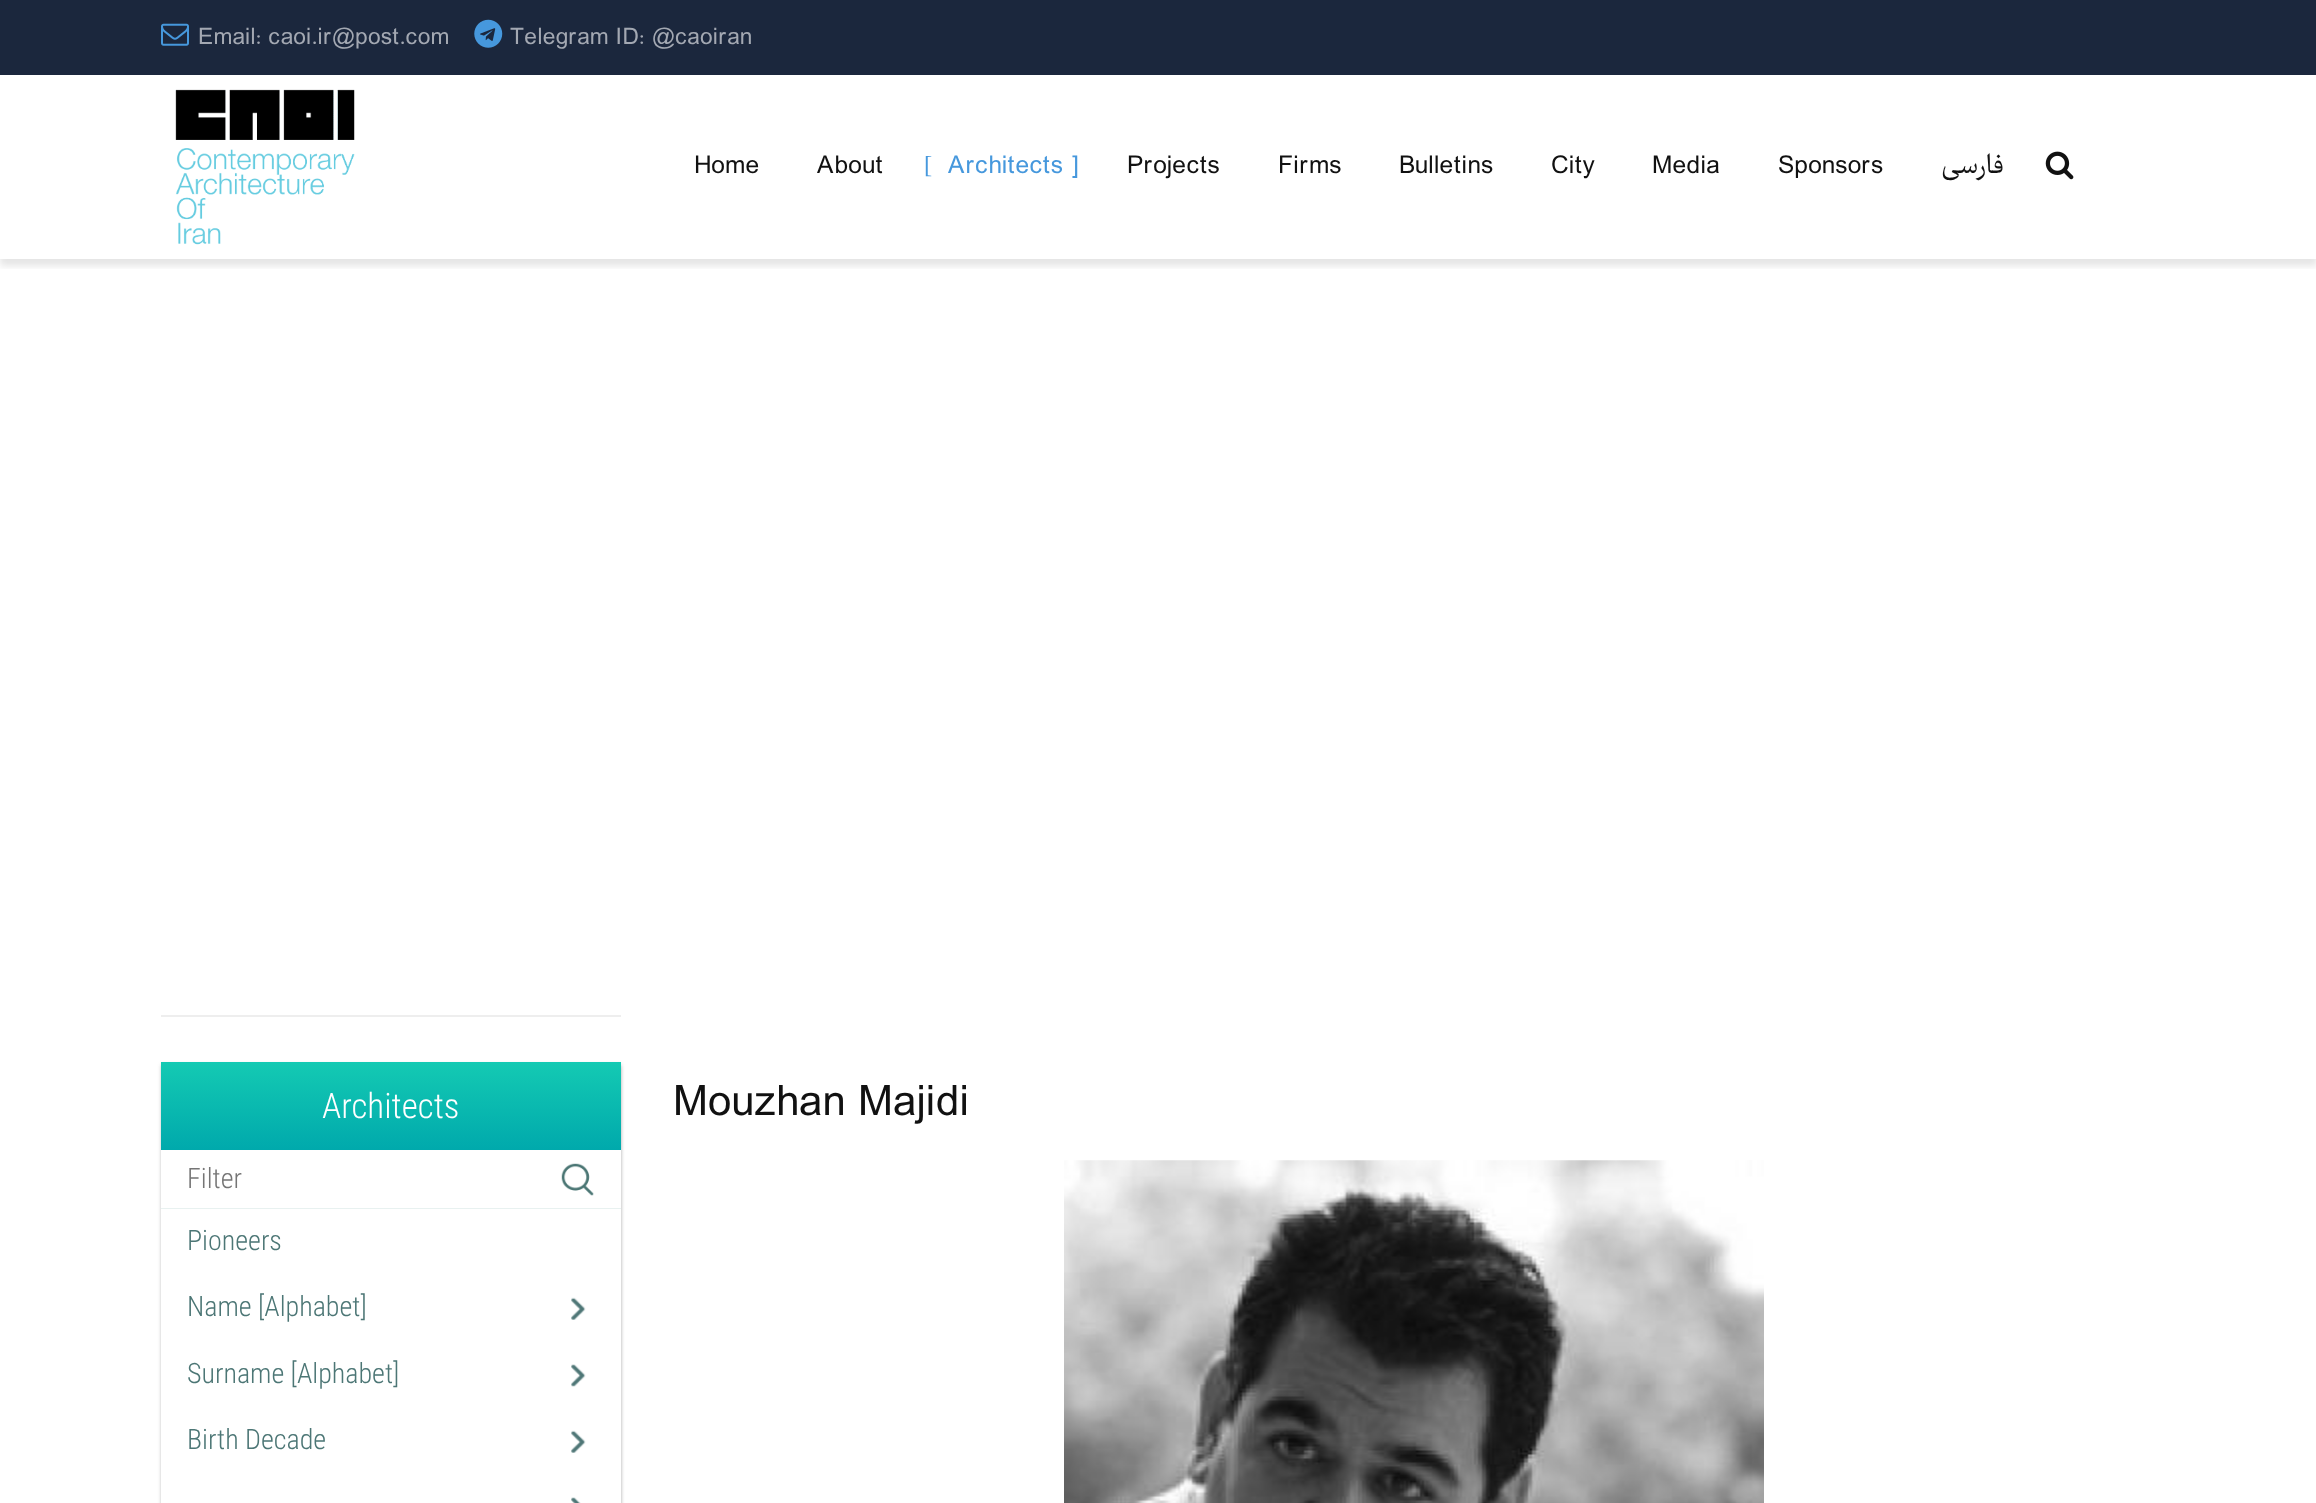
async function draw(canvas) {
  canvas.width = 2316
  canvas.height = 1503
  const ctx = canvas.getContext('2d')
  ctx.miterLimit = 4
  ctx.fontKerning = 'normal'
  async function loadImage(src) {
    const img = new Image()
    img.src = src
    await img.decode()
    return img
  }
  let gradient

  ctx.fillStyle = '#fff'
  ctx.fillRect(0, 0, 2316, 1503)
  ctx.fillStyle = '#1b273d'
  ctx.fillRect(0, 0, 2316, 75)
  ctx.drawImage(await loadImage('image0.png'), 161, 23, 28, 23)
  ctx.font = '22.75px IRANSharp'
  ctx.fillStyle = '#a3a8b2'
  ctx.fillText('Email: caoi.ir@post.com', 198, 44)
  ctx.drawImage(await loadImage('image1.png'), 474, 19, 29, 29)
  ctx.fillText('Telegram ID:', 510, 44)
  ctx.fillText('@caoiran', 652, 44)
  ctx.save()
  ctx.beginPath()
  ctx.rect(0, 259, 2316, 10)
  ctx.clip()
  ctx.fillStyle = '#0000001a'
  ctx.filter = 'blur(3.5px)'
  ctx.beginPath()
  ctx.rect(0, 82, 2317, 184)
  ctx.fill()
  ctx.filter = 'none'
  ctx.restore()
  ctx.drawImage(await loadImage('image2.png'), 175, 89, 180, 156)
  ctx.font = '24.5px IRANSharp'
  ctx.fillStyle = '#111'
  ctx.fillText('Home', 694, 173)
  ctx.fillText('About', 817, 173)
  ctx.font = '24.5px Liberation Serif'
  ctx.fillStyle = '#4698dd'
  ctx.fillText('[', 924, 173)
  ctx.font = '24.5px IRANSharp'
  ctx.fillText('Architects', 948, 173)
  ctx.fillText(']', 1072, 173)
  ctx.fillStyle = '#111'
  ctx.fillText('Projects', 1127, 173)
  ctx.fillText('Firms', 1278, 173)
  ctx.fillText('Bulletins', 1399, 173)
  ctx.fillText('City', 1551, 173)
  ctx.fillText('Media', 1652, 173)
  ctx.fillText('Sponsors', 1778, 173)
  ctx.direction = 'rtl'
  ctx.fillText('فارسی', 2004, 173)
  ctx.drawImage(await loadImage('image3.png'), 2045, 151, 29, 29)
  ctx.fillStyle = '#eee'
  ctx.fillRect(161, 1015, 460, 2)
  ctx.save()
  ctx.beginPath()
  ctx.moveTo(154, 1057)
  ctx.lineTo(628, 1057)
  ctx.lineTo(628, 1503)
  ctx.lineTo(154, 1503)
  ctx.closePath()
  ctx.moveTo(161, 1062)
  ctx.lineTo(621, 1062)
  ctx.lineTo(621, 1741)
  ctx.lineTo(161, 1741)
  ctx.closePath()
  ctx.clip('evenodd')
  ctx.fillStyle = '#0000001a'
  ctx.filter = 'blur(2px)'
  ctx.beginPath()
  ctx.rect(161, 1064, 460, 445)
  ctx.fill()
  ctx.filter = 'none'
  ctx.restore()
  ctx.save()
  ctx.beginPath()
  ctx.moveTo(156, 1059)
  ctx.lineTo(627, 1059)
  ctx.lineTo(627, 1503)
  ctx.lineTo(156, 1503)
  ctx.closePath()
  ctx.moveTo(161, 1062)
  ctx.lineTo(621, 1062)
  ctx.lineTo(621, 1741)
  ctx.lineTo(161, 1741)
  ctx.closePath()
  ctx.clip('evenodd')
  ctx.fillStyle = '#00000066'
  ctx.filter = 'blur(2px)'
  ctx.beginPath()
  ctx.rect(163, 1066, 457, 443)
  ctx.fill()
  ctx.filter = 'none'
  ctx.restore()
  gradient = ctx.createLinearGradient(391, 1062, 391, 1150)
  gradient.addColorStop(0, '#14cab3')
  gradient.addColorStop(1, '#00a9ac')
  ctx.fillStyle = gradient
  ctx.fillRect(161, 1062, 460, 88)
  ctx.direction = 'ltr'
  ctx.font = '300 35px Roboto Condensed'
  ctx.fillStyle = '#fff'
  ctx.fillText('Architects', 322, 1118)
  ctx.fillStyle = '#e8f1f0'
  ctx.fillRect(161, 1208, 460, 1)
  ctx.font = '300 28px Roboto Condensed'
  ctx.fillStyle = '#757575'
  ctx.fillText('Filter', 187, 1188)
  ctx.drawImage(await loadImage('image4.png'), 561, 1163, 33, 33)
  ctx.fillStyle = '#4c7675'
  ctx.fillText('Pioneers', 187, 1250)
  ctx.fillText('Name [Alphabet]', 187, 1316)
  ctx.drawImage(await loadImage('image5.png'), 571, 1297, 15, 23)
  ctx.fillText('Surname [Alphabet]', 187, 1383)
  ctx.drawImage(await loadImage('image6.png'), 571, 1364, 15, 23)
  ctx.fillText('Birth Decade', 187, 1449)
  ctx.drawImage(await loadImage('image5.png'), 571, 1430, 15, 23)
  ctx.drawImage(await loadImage('image7.png'), 571, 1497, 10, 6)
  ctx.font = '42px IRANSharp'
  ctx.fillStyle = '#111'
  ctx.fillText('Mouzhan Majidi', 673, 1115)
  ctx.drawImage(await loadImage('image8.png'), 1064, 1160, 700, 343)
}

draw(document.querySelector('canvas'))
